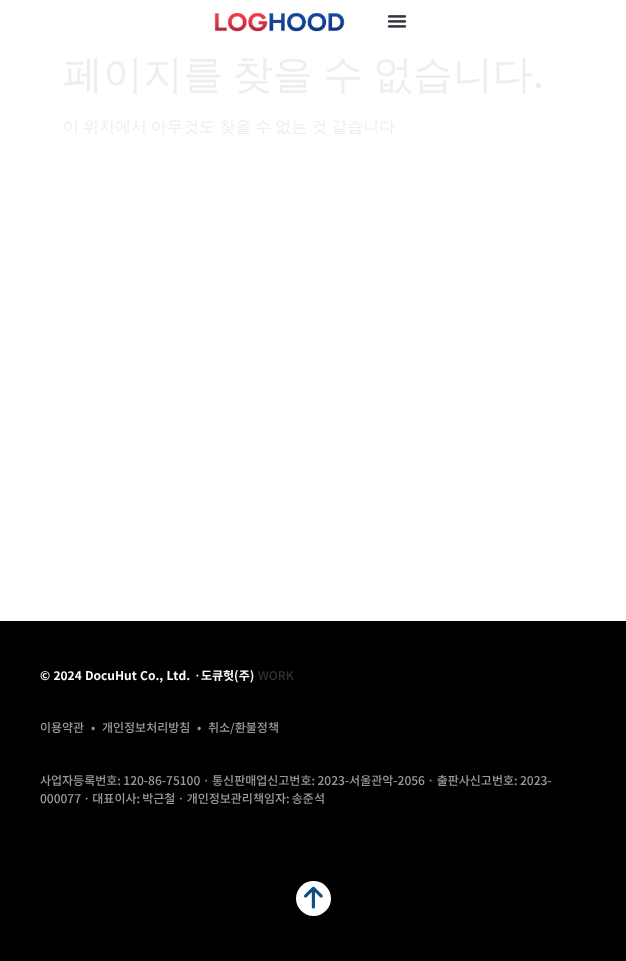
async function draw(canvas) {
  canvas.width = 626
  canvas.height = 961
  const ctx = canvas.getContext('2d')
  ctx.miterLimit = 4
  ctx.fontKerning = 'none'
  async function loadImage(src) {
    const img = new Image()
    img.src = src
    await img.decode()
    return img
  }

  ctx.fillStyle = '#fff'
  ctx.fillRect(0, 0, 626, 961)
  ctx.drawImage(await loadImage('image0.png'), 214, 13, 131, 19)
  ctx.drawImage(await loadImage('image1.png'), 387, 15, 20, 13)
  ctx.wordSpacing = '-2px'
  ctx.font = '500 40px WenQuanYi Zen Hei'
  ctx.fillStyle = '#eee'
  ctx.fillText('페이지를 찾을 수 없습니다', 63, 88)
  ctx.wordSpacing = '0px'
  ctx.font = '500 40px Roboto'
  ctx.fillText('.', 533, 88)
  ctx.wordSpacing = '-0.75px'
  ctx.font = '500 16px WenQuanYi Zen Hei'
  ctx.fillText('이 위치에서 아무것도 찾을 수 없는 것 같습니다', 63, 132)
  ctx.fillStyle = '#000'
  ctx.fillRect(0, 621, 626, 340)
  ctx.wordSpacing = '0.5px'
  ctx.font = 'bold 12px Noto Sans KR'
  ctx.fillStyle = '#fbfbfb'
  ctx.fillText('© 2024 DocuHut Co., Ltd.', 40, 680)
  ctx.wordSpacing = '0px'
  ctx.font = '500 12px Noto Sans KR'
  ctx.fillText('·', 194, 680)
  ctx.font = 'bold 12px Noto Sans KR'
  ctx.fillText('도큐헛(주)', 201, 680)
  ctx.font = '500 12px Noto Sans KR'
  ctx.fillStyle = '#333'
  ctx.fillText('WORK', 258, 680)
  ctx.fillStyle = '#999'
  ctx.fillText('이용약관', 40, 732)
  ctx.fillText('•', 91, 732)
  ctx.fillText('개인정보처리방침', 102, 732)
  ctx.fillText('•', 197, 732)
  ctx.fillText('취소/환불정책', 208, 732)
  ctx.wordSpacing = '-0.25px'
  ctx.fillText('사업자등록번호: 120-86-75100 · 통신판매업신고번호: 2023-서울관악-2056 · 출판사신고번호: 2023-', 40, 785)
  ctx.wordSpacing = '-0.5px'
  ctx.fillText('000077 · 대표이사: 박근철 · 개인정보관리책임자: 송준석', 40, 803)
  ctx.fillStyle = '#fff'
  ctx.beginPath()
  ctx.arc(313.5, 898.5, 17.5, 0, 2 * Math.PI)
  ctx.fill()
  ctx.drawImage(await loadImage('image2.png'), 304, 886, 19, 23)
}

draw(document.querySelector('canvas'))
